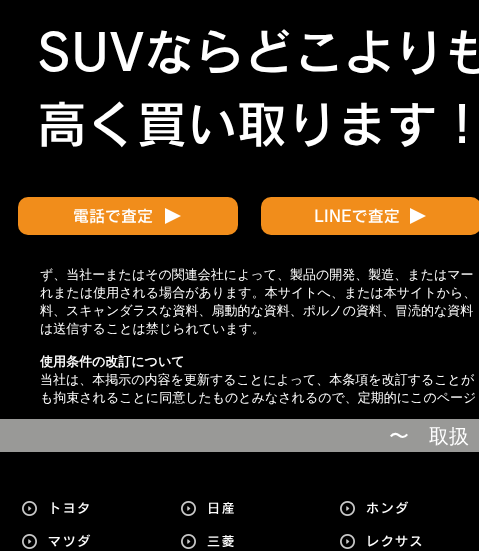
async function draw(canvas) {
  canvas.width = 479
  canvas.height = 551
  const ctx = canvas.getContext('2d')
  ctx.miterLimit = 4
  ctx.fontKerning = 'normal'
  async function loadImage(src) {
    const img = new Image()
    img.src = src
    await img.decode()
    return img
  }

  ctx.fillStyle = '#000'
  ctx.fillRect(0, 0, 479, 551)
  ctx.fillStyle = '#000000b3'
  ctx.filter = 'blur(2.5px)'
  ctx.beginPath()
  ctx.rect(0, 0, 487, 266)
  ctx.fill()
  ctx.filter = 'none'
  ctx.font = '600 50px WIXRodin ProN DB'
  ctx.fillStyle = '#fff'
  ctx.fillText('SUVならどこよりも', 37, 71)
  ctx.fillText('高く買い取ります！', 37, 143)
  ctx.fillStyle = '#f18d1b'
  ctx.beginPath()
  ctx.roundRect(18, 197, 220, 38, 10)
  ctx.fill()
  ctx.font = '600 16px WIXRodin ProN DB'
  ctx.fillStyle = '#fff'
  ctx.fillText('電話で査定', 73, 222)
  ctx.beginPath()
  ctx.moveTo(165, 208)
  ctx.lineTo(181, 216)
  ctx.lineTo(165, 224)
  ctx.closePath()
  ctx.fill()
  ctx.fillStyle = '#f18d1b'
  ctx.beginPath()
  ctx.roundRect(261, 197, 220, 38, 10)
  ctx.fill()
  ctx.fillStyle = '#fff'
  ctx.fillText('LINEで査定', 314, 222)
  ctx.beginPath()
  ctx.moveTo(410, 208)
  ctx.lineTo(426, 216)
  ctx.lineTo(410, 224)
  ctx.closePath()
  ctx.fill()
  ctx.font = '500 13px WenQuanYi Zen Hei'
  ctx.fillText('ず、当社ーまたはその関連会社によって、製品の開発、製造、またはマー', 40, 279)
  ctx.fillText('れまたは使用される場合があります。本サイトへ、または本サイトから、', 40, 297)
  ctx.fillText('料、スキャンダラスな資料、扇動的な資料、ポルノの資料、冒涜的な資料', 40, 315)
  ctx.fillText('は送信することは禁じられています。', 40, 333)
  ctx.font = 'bold 13px WenQuanYi Zen Hei'
  ctx.fillText('使用条件の改訂について', 40, 366)
  ctx.font = '500 13px WenQuanYi Zen Hei'
  ctx.fillText('当社は、本掲示の内容を更新することによって、本条項を改訂することが', 40, 384)
  ctx.fillText('も拘束されることに同意したものとみなされるので、定期的にこのページ', 40, 402)
  ctx.fillStyle = '#999997'
  ctx.fillRect(0, 419, 479, 33)
  ctx.font = '500 20px WenQuanYi Zen Hei'
  ctx.fillStyle = '#fff'
  ctx.fillText('〜　取扱', 389, 443)
  ctx.drawImage(await loadImage('image0.png'), 22, 501, 15, 15)
  ctx.letterSpacing = '1.5px'
  ctx.font = '600 13px WIXRodin ProN DB'
  ctx.fillText('トヨタ', 48, 513)
  ctx.drawImage(await loadImage('image0.png'), 22, 534, 15, 15)
  ctx.fillText('マツダ', 48, 546)
  ctx.drawImage(await loadImage('image0.png'), 181, 501, 15, 15)
  ctx.fillText('日産', 207, 513)
  ctx.drawImage(await loadImage('image0.png'), 181, 534, 15, 15)
  ctx.fillText('三菱', 207, 546)
  ctx.drawImage(await loadImage('image0.png'), 340, 501, 15, 15)
  ctx.fillText('ホンダ', 366, 513)
  ctx.drawImage(await loadImage('image0.png'), 340, 534, 15, 15)
  ctx.fillText('レクサス', 366, 546)
}

draw(document.querySelector('canvas'))
